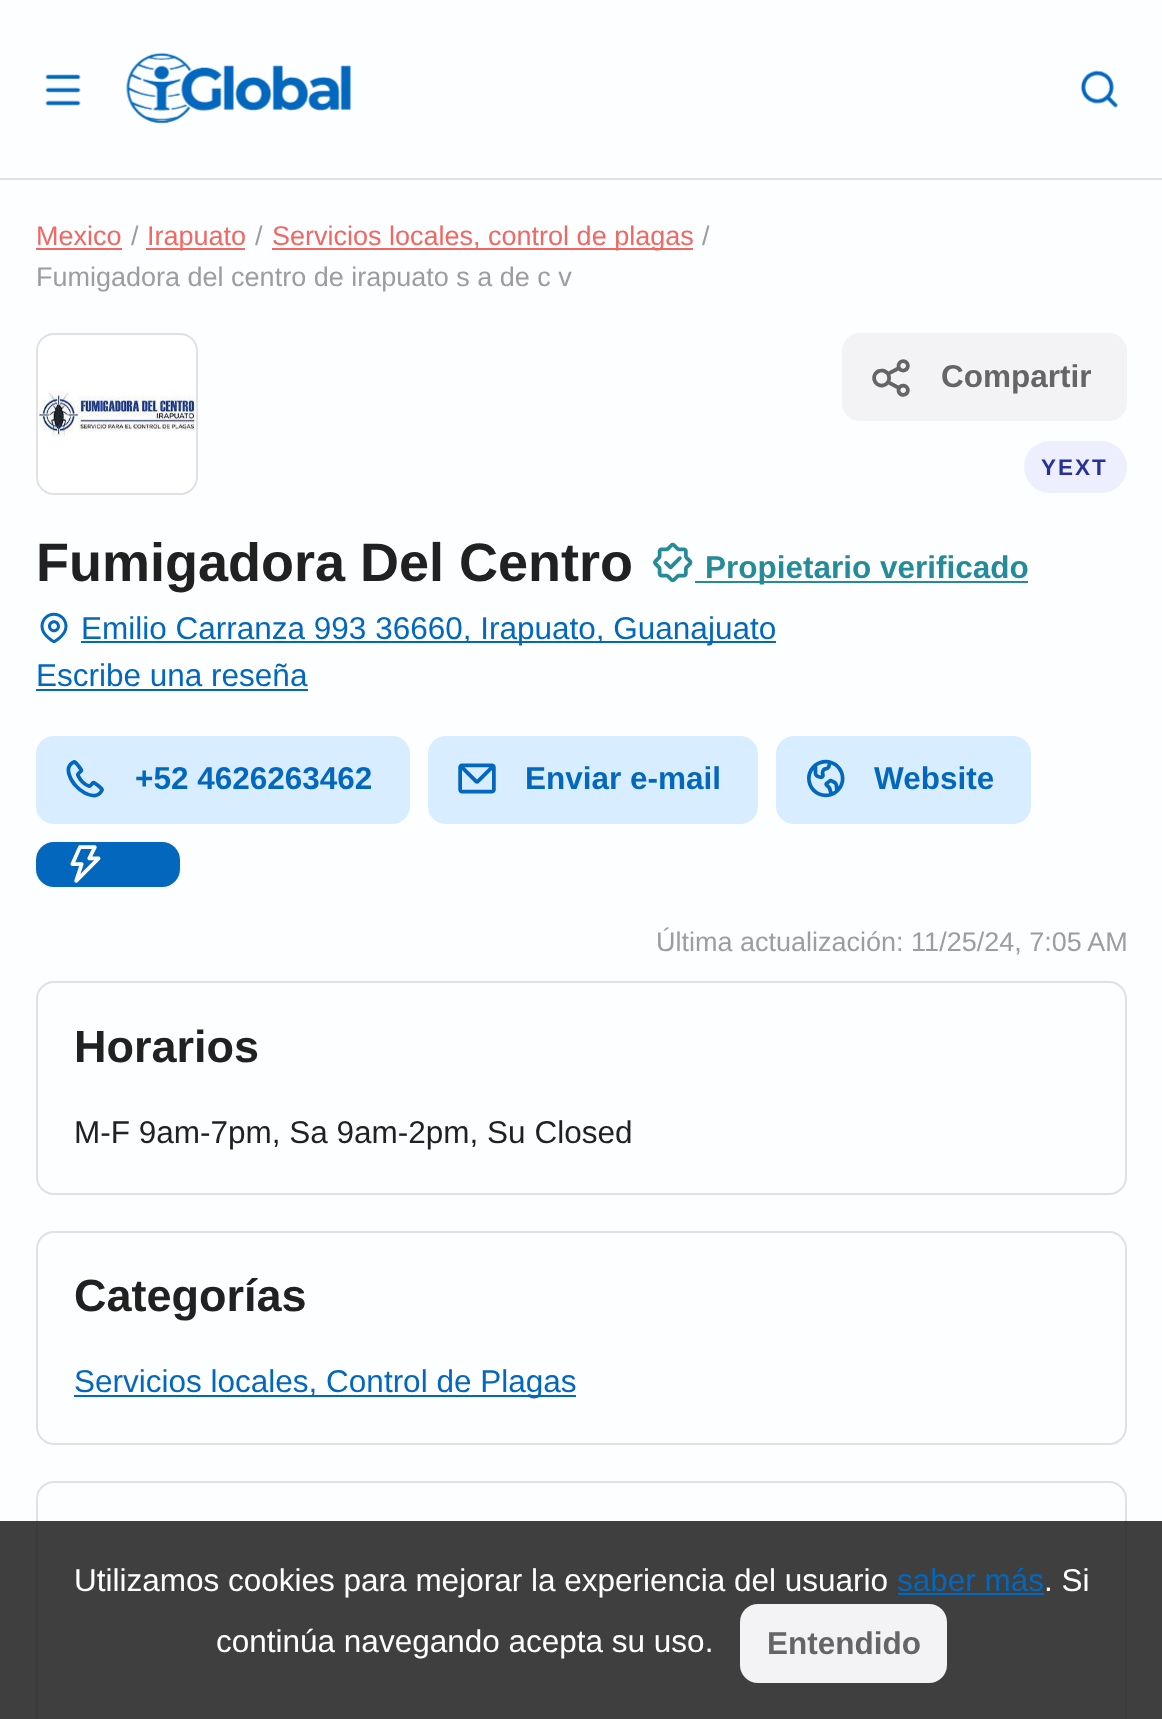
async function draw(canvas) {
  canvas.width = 1162
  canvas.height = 1719
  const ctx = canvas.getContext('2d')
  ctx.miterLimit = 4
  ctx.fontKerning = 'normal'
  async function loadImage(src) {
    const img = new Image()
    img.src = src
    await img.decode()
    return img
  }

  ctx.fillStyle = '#fcfeff'
  ctx.fillRect(0, 0, 1162, 1719)
  ctx.fillStyle = '#e1e1e5'
  ctx.fillRect(0, 178, 1162, 2)
  ctx.drawImage(await loadImage('image0.png'), 45, 74, 36, 32)
  ctx.drawImage(await loadImage('image1.png'), 126, 52, 225, 72)
  ctx.drawImage(await loadImage('image2.png'), 1080, 70, 38, 38)
  ctx.font = '27px Liberation Sans'
  ctx.fillStyle = '#f16862'
  ctx.fillText('Mexico', 36, 245)
  ctx.fillRect(36, 248, 86, 2)
  ctx.fillStyle = '#9d9c9e'
  ctx.fillText('/', 131, 245)
  ctx.fillStyle = '#f16862'
  ctx.fillRect(146, 248, 99, 2)
  ctx.fillText('Irapuato', 147, 245)
  ctx.fillStyle = '#9d9c9e'
  ctx.fillText('/', 255, 245)
  ctx.fillStyle = '#f16862'
  ctx.fillRect(272, 248, 421, 2)
  ctx.fillText('Servicios locales, control de plagas', 272, 245)
  ctx.fillStyle = '#9d9c9e'
  ctx.fillText('/', 702, 245)
  ctx.fillText('Fumigadora del centro de irapuato s a de c v', 36, 286)
  ctx.beginPath()
  ctx.roundRect(37, 334, 160, 160, 17)
  ctx.strokeStyle = '#e1e1e5'
  ctx.lineWidth = 2
  ctx.stroke()
  ctx.drawImage(await loadImage('image3.png'), 38, 336, 158, 157)
  ctx.fillStyle = '#f3f3f5'
  ctx.beginPath()
  ctx.roundRect(842, 333, 285, 88, 18)
  ctx.fill()
  ctx.drawImage(await loadImage('image4.png'), 872, 359, 38, 38)
  ctx.font = 'bold 31.5px Liberation Sans'
  ctx.fillStyle = '#656566'
  ctx.fillText('Compartir', 941, 387)
  ctx.fillStyle = '#edefff'
  ctx.beginPath()
  ctx.roundRect(1024, 441, 103, 52, 26)
  ctx.fill()
  ctx.letterSpacing = '2px'
  ctx.font = 'bold 22.5px Liberation Sans'
  ctx.fillStyle = '#263299'
  ctx.fillText('YEXT', 1041, 475)
  ctx.letterSpacing = '0px'
  ctx.font = 'bold 54px Liberation Sans'
  ctx.fillStyle = '#212121'
  ctx.fillText('Fumigadora Del Centro', 36, 581)
  ctx.drawImage(await loadImage('image5.png'), 653, 542, 40, 41)
  ctx.fillStyle = '#268b99'
  ctx.fillRect(695, 581, 333, 2)
  ctx.font = 'bold 31.5px Liberation Sans'
  ctx.fillText('Propietario verificado', 705, 578)
  ctx.drawImage(await loadImage('image6.png'), 40, 612, 28, 31)
  ctx.fillStyle = '#0367bd'
  ctx.fillRect(81, 641, 695, 2)
  ctx.font = '31.5px Liberation Sans'
  ctx.fillText('Emilio Carranza 993 36660, Irapuato, Guanajuato', 81, 639)
  ctx.fillText('Escribe una reseña', 36, 686)
  ctx.fillRect(36, 689, 272, 2)
  ctx.fillStyle = '#d8edff'
  ctx.beginPath()
  ctx.roundRect(36, 736, 374, 88, 18)
  ctx.fill()
  ctx.drawImage(await loadImage('image7.png'), 66, 760, 38, 38)
  ctx.font = 'bold 31.5px Liberation Sans'
  ctx.fillStyle = '#0367bd'
  ctx.fillText('+52 4626263462', 135, 789)
  ctx.fillStyle = '#d8edff'
  ctx.beginPath()
  ctx.roundRect(428, 736, 330, 88, 18)
  ctx.fill()
  ctx.drawImage(await loadImage('image8.png'), 458, 763, 38, 31)
  ctx.fillStyle = '#0367bd'
  ctx.fillText('Enviar e-mail', 525, 789)
  ctx.fillStyle = '#d8edff'
  ctx.beginPath()
  ctx.roundRect(776, 736, 255, 88, 18)
  ctx.fill()
  ctx.drawImage(await loadImage('image9.png'), 807, 759, 38, 39)
  ctx.fillStyle = '#0367bd'
  ctx.fillText('Website', 874, 789)
  ctx.beginPath()
  ctx.roundRect(36, 842, 144, 45, 18)
  ctx.fill()
  ctx.drawImage(await loadImage('image10.png'), 70, 845, 31, 38)
  ctx.font = '27px Liberation Sans'
  ctx.fillStyle = '#9d9c9e'
  ctx.fillText('Última actualización: 11/25/24, 7:05 AM', 656, 951)
  ctx.beginPath()
  ctx.roundRect(37, 982, 1089, 212, 17)
  ctx.stroke()
  ctx.font = 'bold 45px Liberation Sans'
  ctx.fillStyle = '#212121'
  ctx.fillText('Horarios', 74, 1062)
  ctx.font = '31.5px Liberation Sans'
  ctx.fillText('M-F 9am-7pm, Sa 9am-2pm, Su Closed', 74, 1143)
  ctx.beginPath()
  ctx.roundRect(37, 1232, 1089, 212, 17)
  ctx.stroke()
  ctx.font = 'bold 45px Liberation Sans'
  ctx.fillText('Categorías', 74, 1311)
  ctx.fillStyle = '#0367bd'
  ctx.fillRect(74, 1395, 502, 2)
  ctx.font = '31.5px Liberation Sans'
  ctx.fillText('Servicios locales, Control de Plagas', 74, 1392)
  ctx.beginPath()
  ctx.roundRect(37, 1482, 1089, 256, 17)
  ctx.stroke()
  ctx.fillStyle = '#222222de'
  ctx.fillRect(0, 1521, 1162, 198)
  ctx.fillStyle = '#fff'
  ctx.fillText('Utilizamos cookies para mejorar la experiencia del usuario', 74, 1591)
  ctx.fillStyle = '#0367bd'
  ctx.fillText('saber más', 897, 1591)
  ctx.fillRect(898, 1593, 146, 2)
  ctx.fillStyle = '#fff'
  ctx.fillText('. Si', 1044, 1591)
  ctx.fillText('continúa navegando acepta su uso.', 216, 1652)
  ctx.fillStyle = '#f3f3f5'
  ctx.beginPath()
  ctx.roundRect(740, 1604, 207, 79, 18)
  ctx.fill()
  ctx.font = 'bold 31.5px Liberation Sans'
  ctx.fillStyle = '#656566'
  ctx.fillText('Entendido', 767, 1654)
}

draw(document.querySelector('canvas'))
